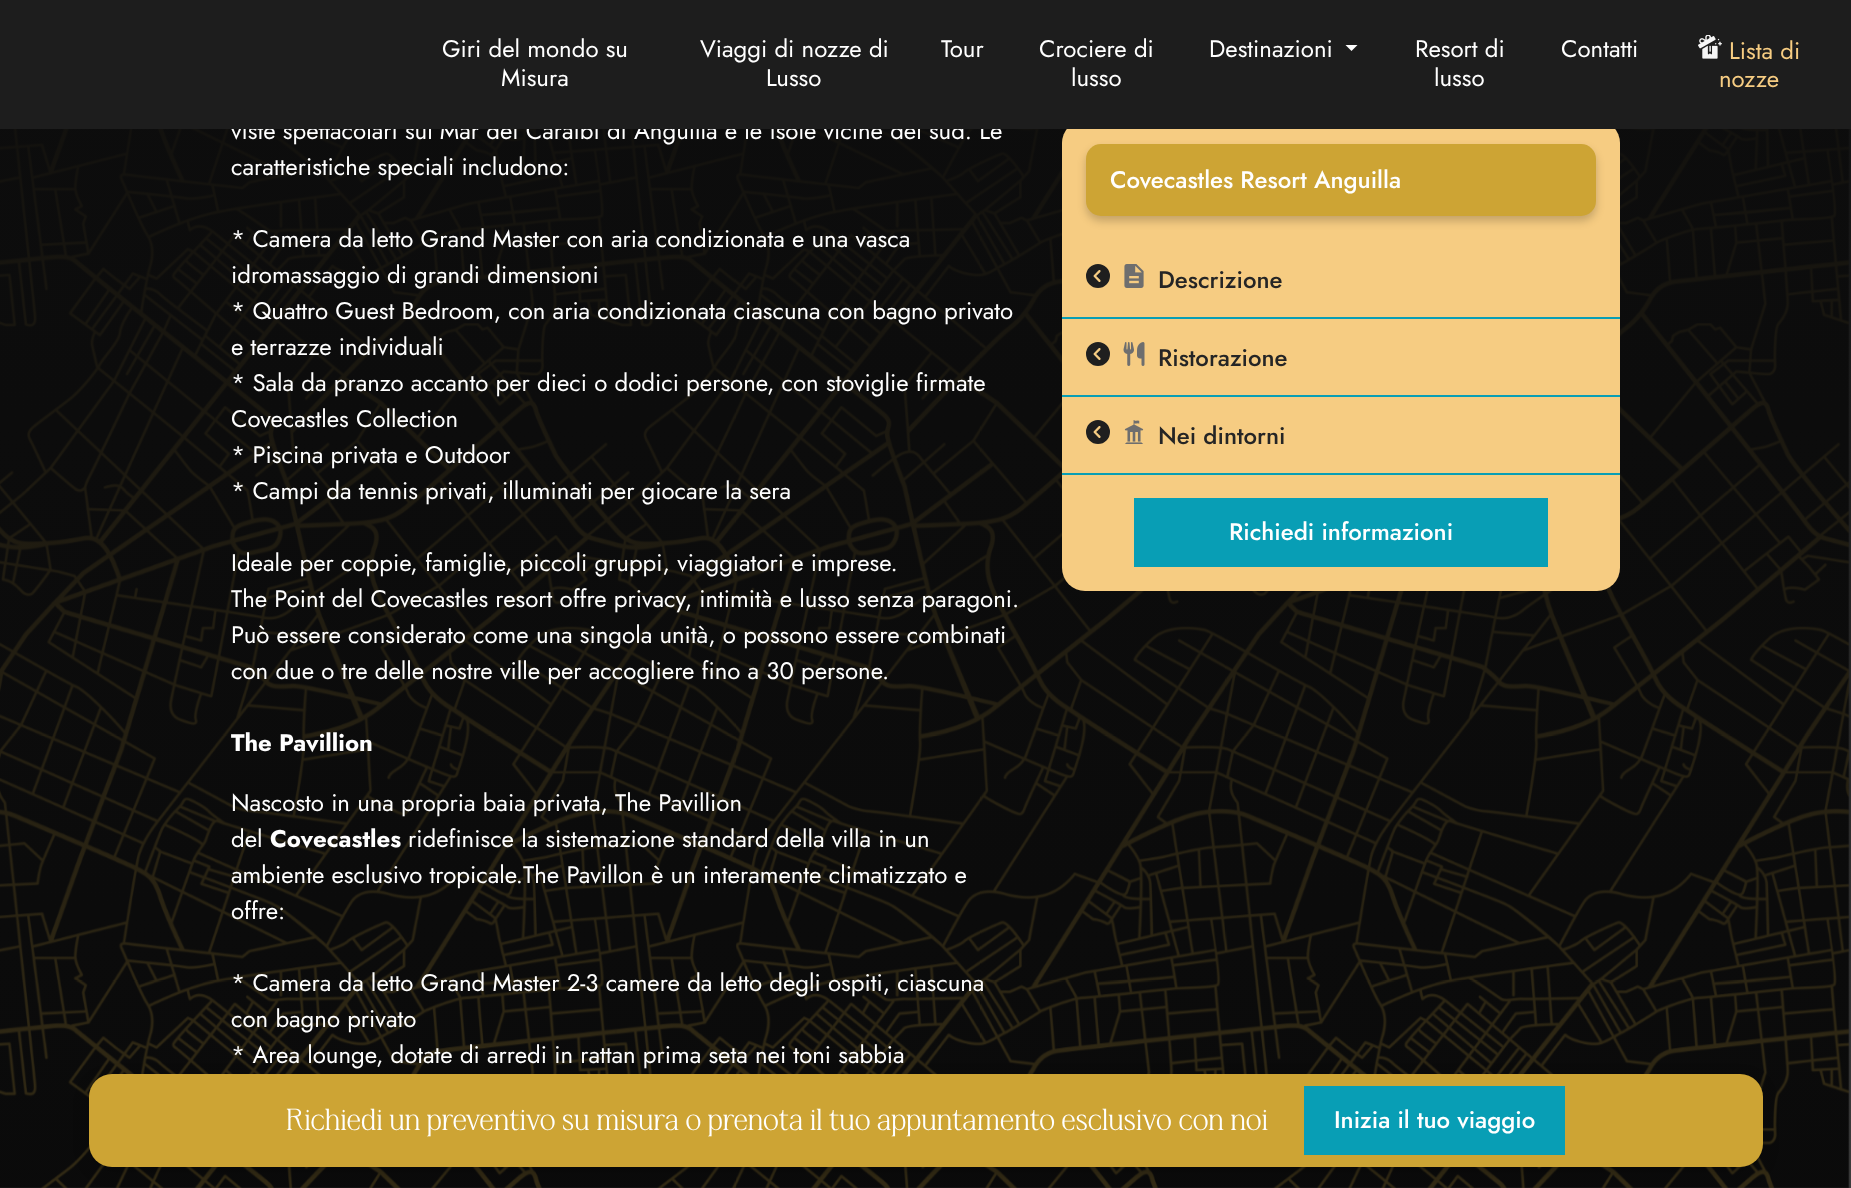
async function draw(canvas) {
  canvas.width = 1851
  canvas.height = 1188
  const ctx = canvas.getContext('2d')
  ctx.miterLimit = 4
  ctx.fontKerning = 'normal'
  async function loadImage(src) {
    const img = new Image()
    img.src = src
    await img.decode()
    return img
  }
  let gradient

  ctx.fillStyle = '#fff'
  ctx.fillRect(0, 0, 1851, 1188)
  ctx.drawImage(await loadImage('image1.png'), 0, 129, 1851, 1059)
  gradient = ctx.createLinearGradient(925, -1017, 926, 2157)
  gradient.addColorStop(0.3, '#0d0d0d')
  gradient.addColorStop(0.7, '#0d0d0dcc')
  gradient.addColorStop(0.9, '#0d0d0dcc')
  gradient.addColorStop(1, '#0d0d0d')
  ctx.fillStyle = gradient
  ctx.fillRect(0, 129, 1851, 1059)
  ctx.font = '24px Jost'
  ctx.fillStyle = '#fff'
  ctx.fillText('viste spettacolari sul Mar dei Caraibi di Anguilla e le isole vicine del sud. Le', 231, 139)
  ctx.fillStyle = '#f6cc82'
  ctx.beginPath()
  ctx.roundRect(1062, 120, 558, 471, 23)
  ctx.fill()
  ctx.fillStyle = '#1d1d1d'
  ctx.fillRect(0, 0, 1851, 129)
  ctx.fillStyle = '#fff'
  ctx.fillText('Giri del mondo su', 442, 57)
  ctx.fillText('Misura', 501, 86)
  ctx.fillText('Viaggi di nozze di', 700, 57)
  ctx.fillText('Lusso', 766, 86)
  ctx.fillText('Tour', 941, 57)
  ctx.fillText('Crociere di', 1039, 57)
  ctx.fillText('lusso', 1071, 86)
  ctx.fillText('Destinazioni', 1209, 57)
  ctx.beginPath()
  ctx.moveTo(1345.5, 45)
  ctx.lineTo(1357.5, 45)
  ctx.lineTo(1351.5, 51)
  ctx.closePath()
  ctx.fill()
  ctx.fillText('Resort di', 1415, 57)
  ctx.fillText('lusso', 1434, 86)
  ctx.fillText('Contatti', 1561, 57)
  ctx.drawImage(await loadImage('image0.png'), 1698, 35, 24, 24)
  ctx.fillStyle = '#f6cc82'
  ctx.fillText('Lista di', 1729, 59)
  ctx.fillText('nozze', 1719, 87)
  ctx.fillStyle = '#fff'
  ctx.fillText('caratteristiche speciali includono:', 231, 175)
  ctx.fillText('* Camera da letto Grand Master con aria condizionata e una vasca', 231, 247)
  ctx.fillText('idromassaggio di grandi dimensioni', 231, 283)
  ctx.fillText('* Quattro Guest Bedroom, con aria condizionata ciascuna con bagno privato', 231, 319)
  ctx.fillText('e terrazze individuali', 231, 355)
  ctx.fillText('* Sala da pranzo accanto per dieci o dodici persone, con stoviglie firmate', 231, 391)
  ctx.fillText('Covecastles Collection', 231, 427)
  ctx.fillText('* Piscina privata e Outdoor', 231, 463)
  ctx.fillText('* Campi da tennis privati, illuminati per giocare la sera', 231, 499)
  ctx.fillText('Ideale per coppie, famiglie, piccoli gruppi, viaggiatori e imprese.', 231, 571)
  ctx.fillText('The Point del Covecastles resort offre privacy, intimità e lusso senza paragoni.', 231, 607)
  ctx.fillText('Può essere considerato come una singola unità, o possono essere combinati', 231, 643)
  ctx.fillText('con due o tre delle nostre ville per accogliere fino a 30 persone.', 231, 679)
  ctx.font = 'bold 24px Jost'
  ctx.fillText('The Pavillion', 231, 751)
  ctx.font = '24px Jost'
  ctx.fillText('Nascosto in una propria baia privata, The Pavillion', 231, 811)
  ctx.fillText('del', 231, 847)
  ctx.font = 'bold 24px Jost'
  ctx.fillText('Covecastles', 270, 847)
  ctx.font = '24px Jost'
  ctx.fillText('ridefinisce la sistemazione standard della villa in un', 408, 847)
  ctx.fillText('ambiente esclusivo tropicale.The Pavillon è un interamente climatizzato e', 231, 883)
  ctx.fillText('offre:', 231, 919)
  ctx.fillText('* Camera da letto Grand Master 2-3 camere da letto degli ospiti, ciascuna', 231, 991)
  ctx.fillText('con bagno privato', 231, 1027)
  ctx.fillText('* Area lounge, dotate di arredi in rattan prima seta nei toni sabbia', 231, 1063)
  ctx.fillStyle = '#00000033'
  ctx.filter = 'blur(4.5px)'
  ctx.beginPath()
  ctx.roundRect(1086, 149, 510, 72, 15)
  ctx.fill()
  ctx.filter = 'none'
  ctx.fillStyle = '#cda434'
  ctx.beginPath()
  ctx.roundRect(1086, 144, 510, 72, 15)
  ctx.fill()
  ctx.font = '500 24px Jost'
  ctx.fillStyle = '#fff'
  ctx.fillText('Covecastles Resort Anguilla', 1110, 188)
  ctx.fillStyle = '#089eb5'
  ctx.fillRect(1062, 317, 558, 2)
  ctx.drawImage(await loadImage('image2.png'), 1086, 264, 24, 24)
  ctx.drawImage(await loadImage('image3.png'), 1124, 264, 20, 24)
  ctx.fillStyle = '#252525'
  ctx.fillText('Descrizione', 1158, 288)
  ctx.fillStyle = '#089eb5'
  ctx.fillRect(1062, 395, 558, 2)
  ctx.drawImage(await loadImage('image2.png'), 1086, 342, 24, 24)
  ctx.drawImage(await loadImage('image4.png'), 1123, 342, 22, 24)
  ctx.fillStyle = '#252525'
  ctx.fillText('Ristorazione', 1158, 366)
  ctx.fillStyle = '#089eb5'
  ctx.fillRect(1062, 473, 558, 2)
  ctx.drawImage(await loadImage('image2.png'), 1086, 420, 24, 24)
  ctx.drawImage(await loadImage('image5.png'), 1124, 420, 20, 24)
  ctx.fillStyle = '#252525'
  ctx.fillText('Nei dintorni', 1158, 444)
  ctx.fillStyle = '#089eb5'
  ctx.fillRect(1134, 498, 414, 69)
  ctx.fillStyle = '#fff'
  ctx.fillText('Richiedi informazioni', 1229, 540)
  ctx.fillStyle = '#00000033'
  ctx.filter = 'blur(7.5px)'
  ctx.beginPath()
  ctx.roundRect(89, 1079, 1674, 93, 23)
  ctx.fill()
  ctx.filter = 'none'
  ctx.fillStyle = '#cda434'
  ctx.beginPath()
  ctx.roundRect(89, 1074, 1674, 93, 23)
  ctx.fill()
  ctx.font = '30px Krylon'
  ctx.fillStyle = '#fff'
  ctx.fillText('Richiedi un preventivo su misura o prenota il tuo appuntamento esclusivo con noi', 286, 1130)
  ctx.fillStyle = '#089eb5'
  ctx.fillRect(1304, 1086, 261, 69)
  ctx.font = '500 24px Jost'
  ctx.fillStyle = '#fff'
  ctx.fillText('Inizia il tuo viaggio', 1334, 1128)
}

draw(document.querySelector('canvas'))
